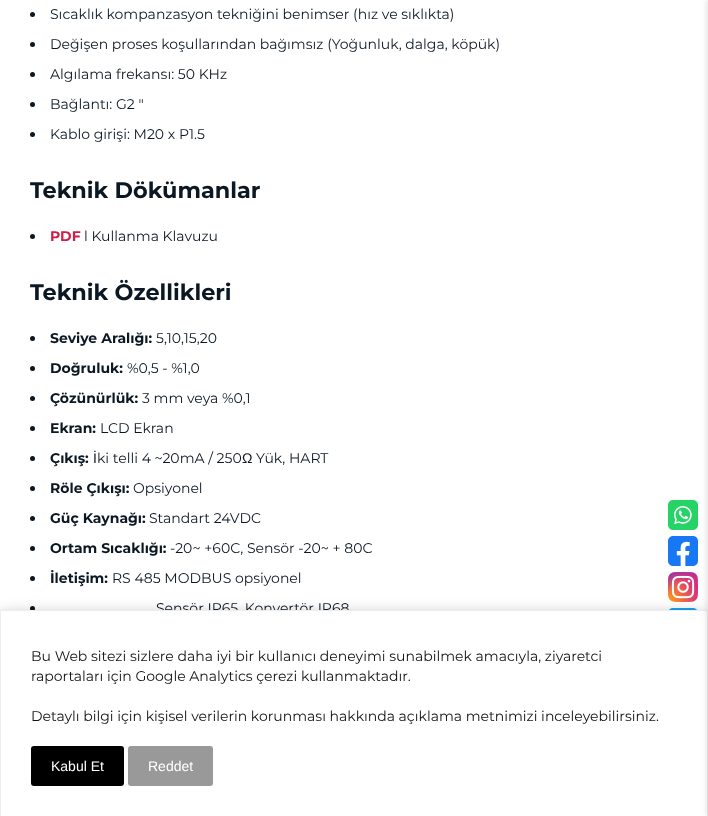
async function draw(canvas) {
  canvas.width = 708
  canvas.height = 816
  const ctx = canvas.getContext('2d')
  ctx.miterLimit = 4
  ctx.fontKerning = 'normal'
  async function loadImage(src) {
    const img = new Image()
    img.src = src
    await img.decode()
    return img
  }

  ctx.fillStyle = '#fff'
  ctx.fillRect(0, 0, 708, 816)
  ctx.fillStyle = '#0b1723'
  ctx.beginPath()
  ctx.arc(32.5, 14.5, 2.5, 0, 2 * Math.PI)
  ctx.fill()
  ctx.font = '14px Montserrat'
  ctx.fillText('Sıcaklık kompanzasyon tekniğini benimser (hız ve sıklıkta)', 50, 19)
  ctx.beginPath()
  ctx.arc(32.5, 44.5, 2.5, 0, 2 * Math.PI)
  ctx.fill()
  ctx.fillText('Değişen proses koşullarından bağımsız (Yoğunluk, dalga, köpük)', 50, 49)
  ctx.beginPath()
  ctx.arc(32.5, 74.5, 2.5, 0, 2 * Math.PI)
  ctx.fill()
  ctx.fillText('Algılama frekansı: 50 KHz', 50, 79)
  ctx.beginPath()
  ctx.arc(32.5, 104.5, 2.5, 0, 2 * Math.PI)
  ctx.fill()
  ctx.fillText('Bağlantı: G2 "', 50, 109)
  ctx.beginPath()
  ctx.arc(32.5, 134.5, 2.5, 0, 2 * Math.PI)
  ctx.fill()
  ctx.fillText('Kablo girişi: M20 x P1.5', 50, 139)
  ctx.font = 'bold 22.4px Montserrat'
  ctx.fillText('Teknik Dökümanlar', 30, 198)
  ctx.beginPath()
  ctx.arc(32.5, 236.5, 2.5, 0, 2 * Math.PI)
  ctx.fill()
  ctx.font = 'bold 14px Montserrat'
  ctx.fillStyle = '#ce1f47'
  ctx.fillText('PDF', 50, 241)
  ctx.font = '14px Montserrat'
  ctx.fillStyle = '#0b1723'
  ctx.fillText('l Kullanma Klavuzu', 84, 241)
  ctx.font = 'bold 22.4px Montserrat'
  ctx.fillText('Teknik Özellikleri', 30, 300)
  ctx.beginPath()
  ctx.arc(32.5, 338.5, 2.5, 0, 2 * Math.PI)
  ctx.fill()
  ctx.font = 'bold 14px Montserrat'
  ctx.fillText('Seviye Aralığı:', 50, 343)
  ctx.font = '14px Montserrat'
  ctx.fillText('5,10,15,20', 156, 343)
  ctx.beginPath()
  ctx.arc(32.5, 368.5, 2.5, 0, 2 * Math.PI)
  ctx.fill()
  ctx.font = 'bold 14px Montserrat'
  ctx.fillText('Doğruluk:', 50, 373)
  ctx.font = '14px Montserrat'
  ctx.fillText('%0,5 - %1,0', 127, 373)
  ctx.beginPath()
  ctx.arc(32.5, 398.5, 2.5, 0, 2 * Math.PI)
  ctx.fill()
  ctx.font = 'bold 14px Montserrat'
  ctx.fillText('Çözünürlük:', 50, 403)
  ctx.font = '14px Montserrat'
  ctx.fillText('3 mm veya %0,1', 142, 403)
  ctx.beginPath()
  ctx.arc(32.5, 428.5, 2.5, 0, 2 * Math.PI)
  ctx.fill()
  ctx.font = 'bold 14px Montserrat'
  ctx.fillText('Ekran:', 50, 433)
  ctx.font = '14px Montserrat'
  ctx.fillText('LCD Ekran', 100, 433)
  ctx.beginPath()
  ctx.arc(32.5, 458.5, 2.5, 0, 2 * Math.PI)
  ctx.fill()
  ctx.font = 'bold 14px Montserrat'
  ctx.fillText('Çıkış:', 50, 463)
  ctx.font = '14px Liberation Sans'
  ctx.fillText('İ', 93, 463)
  ctx.font = '14px Montserrat'
  ctx.fillText('ki telli 4 ~20mA / 250', 97, 463)
  ctx.font = '14px Liberation Sans'
  ctx.fillText('Ω', 242, 463)
  ctx.font = '14px Montserrat'
  ctx.fillText('Yük, HART', 256, 463)
  ctx.beginPath()
  ctx.arc(32.5, 488.5, 2.5, 0, 2 * Math.PI)
  ctx.fill()
  ctx.font = 'bold 14px Montserrat'
  ctx.fillText('Röle Çıkışı:', 50, 493)
  ctx.font = '14px Montserrat'
  ctx.fillText('Opsiyonel', 133, 493)
  ctx.beginPath()
  ctx.arc(32.5, 518.5, 2.5, 0, 2 * Math.PI)
  ctx.fill()
  ctx.font = 'bold 14px Montserrat'
  ctx.fillText('Güç Kaynağı:', 50, 523)
  ctx.font = '14px Montserrat'
  ctx.fillText('Standart 24VDC', 149, 523)
  ctx.beginPath()
  ctx.arc(32.5, 548.5, 2.5, 0, 2 * Math.PI)
  ctx.fill()
  ctx.font = 'bold 14px Montserrat'
  ctx.fillText('Ortam Sıcaklığı:', 50, 553)
  ctx.font = '14px Montserrat'
  ctx.fillText('-20~ +60C, Sensör -20~ + 80C', 170, 553)
  ctx.beginPath()
  ctx.arc(32.5, 578.5, 2.5, 0, 2 * Math.PI)
  ctx.fill()
  ctx.font = 'bold 14px Montserrat'
  ctx.fillText('İletişim:', 50, 583)
  ctx.font = '14px Montserrat'
  ctx.fillText('RS 485 MODBUS opsiyonel', 112, 583)
  ctx.beginPath()
  ctx.arc(32.5, 608.5, 2.5, 0, 2 * Math.PI)
  ctx.fill()
  ctx.fillText('Sensör IP65, Konvertör IP68', 156, 613)
  ctx.drawImage(await loadImage('image0.png'), 668, 500, 30, 30)
  ctx.drawImage(await loadImage('image1.png'), 668, 536, 30, 30)
  ctx.drawImage(await loadImage('image2.png'), 668, 572, 30, 30)
  ctx.drawImage(await loadImage('image3.png'), 669, 608, 28, 2)
  ctx.fillStyle = '#00000059'
  ctx.filter = 'blur(7.5px)'
  ctx.beginPath()
  ctx.rect(0, 615, 708, 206)
  ctx.fill()
  ctx.filter = 'none'
  ctx.fillStyle = '#fff'
  ctx.fillRect(1, 611, 706, 205)
  ctx.fillStyle = '#eee'
  ctx.fillRect(0, 610, 708, 1)
  ctx.fillRect(707, 610, 1, 206)
  ctx.fillRect(0, 610, 1, 206)
  ctx.fillStyle = '#111'
  ctx.fillText('Bu Web sitezi sizlere daha iyi bir kullanıcı deneyimi sunabilmek amacıyla, ziyaretci', 31, 661)
  ctx.fillText('raportaları için Google Analytics çerezi kullanmaktadır.', 31, 681)
  ctx.fillText('Detaylı bilgi için kişisel verilerin korunması hakkında açıklama metnimizi inceleyebilirsiniz.', 31, 721)
  ctx.fillStyle = '#000'
  ctx.beginPath()
  ctx.roundRect(31, 746, 93, 40, 3)
  ctx.fill()
  ctx.font = '14px Liberation Sans'
  ctx.fillStyle = '#fff'
  ctx.fillText('Kabul Et', 51, 771)
  ctx.fillStyle = '#999'
  ctx.beginPath()
  ctx.roundRect(128, 746, 85, 40, 3)
  ctx.fill()
  ctx.fillStyle = '#fff'
  ctx.fillText('Reddet', 148, 771)
  ctx.fillStyle = '#0000001a'
  ctx.filter = 'blur(2.5px)'
  ctx.beginPath()
  ctx.rect(706, 0, 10, 816)
  ctx.fill()
  ctx.filter = 'none'
}

draw(document.querySelector('canvas'))
